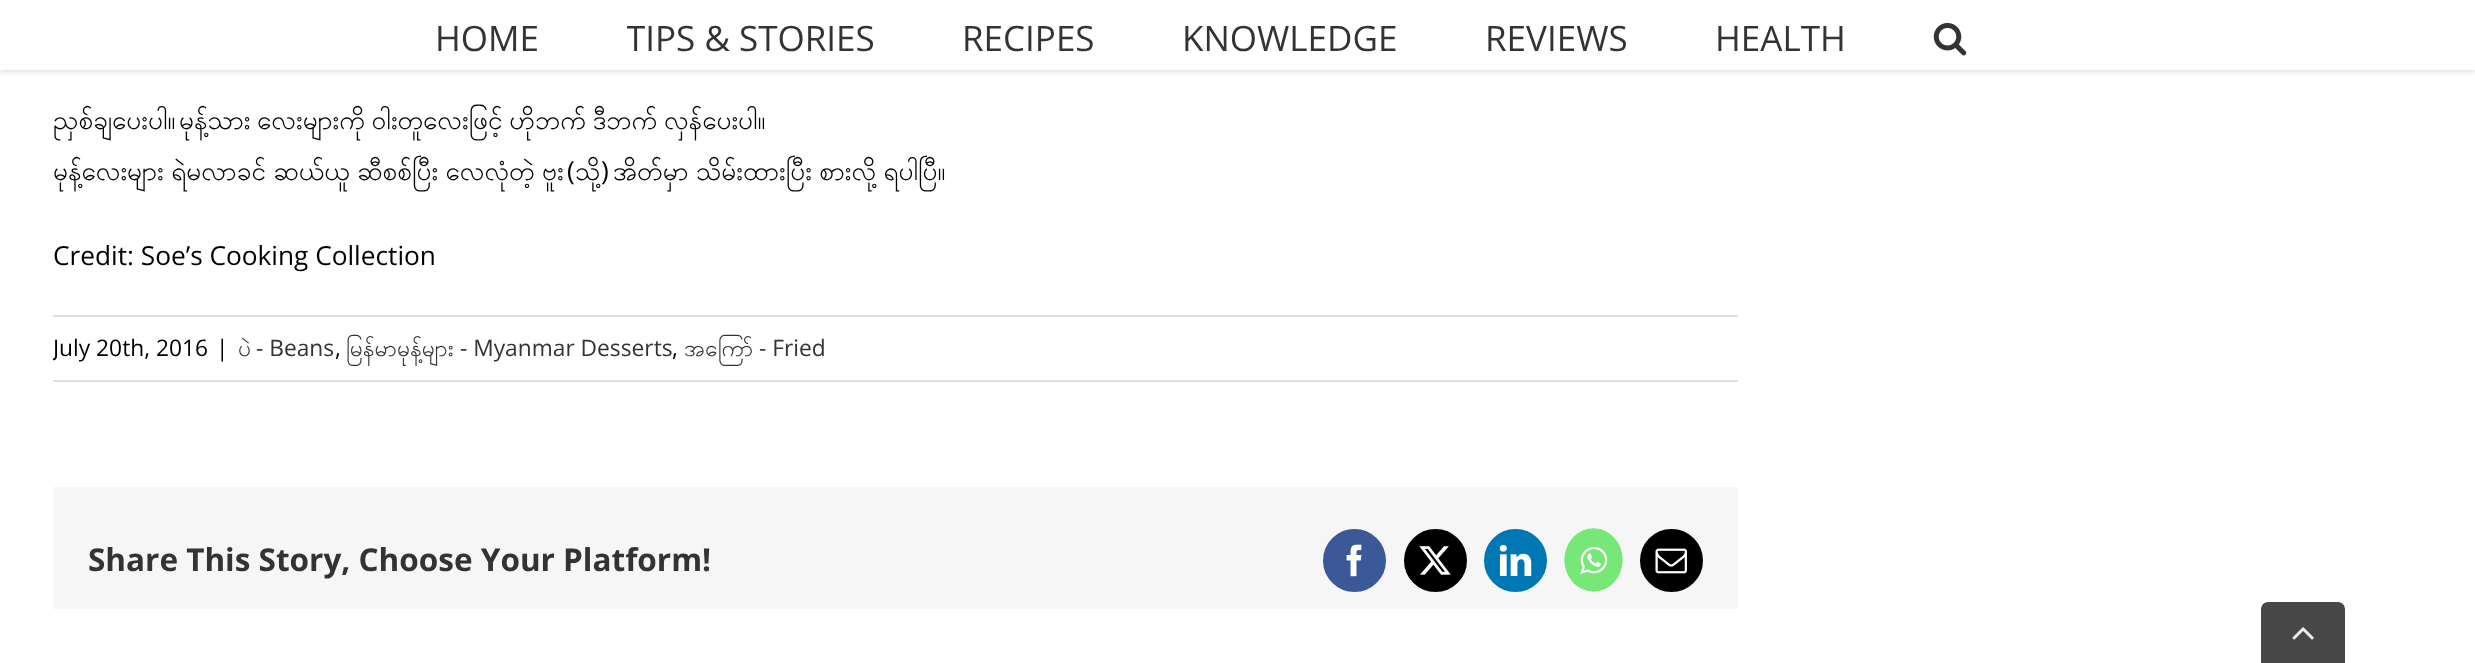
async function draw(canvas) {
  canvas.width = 2475
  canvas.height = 663
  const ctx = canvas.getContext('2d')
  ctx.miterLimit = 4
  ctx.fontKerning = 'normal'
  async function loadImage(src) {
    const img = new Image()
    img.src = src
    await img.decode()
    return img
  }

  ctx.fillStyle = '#fff'
  ctx.fillRect(0, 0, 2475, 663)
  ctx.fillStyle = '#0000001f'
  ctx.filter = 'blur(2.5px)'
  ctx.beginPath()
  ctx.rect(0, 2, 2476, 70)
  ctx.fill()
  ctx.filter = 'none'
  ctx.fillStyle = '#fff'
  ctx.fillRect(0, 0, 2475, 70)
  ctx.font = '35px Open Sans'
  ctx.fillStyle = '#333'
  ctx.fillText('HOME', 435, 51)
  ctx.save()
  ctx.beginPath()
  ctx.rect(627, 0, 336, 70)
  ctx.clip()
  ctx.fillText('TIPS & STORIES', 626, 51)
  ctx.restore()
  ctx.fillText('RECIPES', 962, 51)
  ctx.fillText('KNOWLEDGE', 1182, 51)
  ctx.fillText('REVIEWS', 1485, 51)
  ctx.fillText('HEALTH', 1715, 51)
  ctx.drawImage(await loadImage('image0.png'), 1933, 22, 34, 34)
  ctx.font = '26.25px Padauk'
  ctx.fillStyle = '#000'
  ctx.fillText('ညှစ်ချပေးပါ။', 53, 129)
  ctx.wordSpacing = '-3px'
  ctx.fillText('မုန့်သား လေးများကို ဝါးတူလေးဖြင့် ဟိုဘက် ဒီဘက် လှန်ပေးပါ။', 179, 129)
  ctx.wordSpacing = '-2.25px'
  ctx.fillText('မုန့်လေးများ ရဲမလာခင် ဆယ်ယူ ဆီစစ်ပြီး လေလုံတဲ့ ဗူး', 53, 180)
  ctx.wordSpacing = '0px'
  ctx.font = '26.25px Open Sans'
  ctx.fillText('(', 567, 180)
  ctx.font = '26.25px Padauk'
  ctx.fillText('သို့', 575, 180)
  ctx.font = '26.25px Open Sans'
  ctx.fillText(')', 601, 180)
  ctx.wordSpacing = '-2.25px'
  ctx.font = '26.25px Padauk'
  ctx.fillText('အိတ်မှာ သိမ်းထားပြီး စားလို့ ရပါပြီ။', 613, 180)
  ctx.wordSpacing = '0px'
  ctx.font = '26.25px Open Sans'
  ctx.fillText('Credit: Soe’s Cooking Collection', 53, 265)
  ctx.fillStyle = '#e0dede'
  ctx.fillRect(53, 315, 1685, 2)
  ctx.fillRect(53, 380, 1685, 2)
  ctx.save()
  ctx.beginPath()
  ctx.rect(53, 317, 1685, 63)
  ctx.clip()
  ctx.font = '22.75px Open Sans'
  ctx.fillStyle = '#000'
  ctx.fillText('July 20th, 2016', 53, 356)
  ctx.restore()
  ctx.font = '22.75px Open Sans'
  ctx.fillStyle = '#000'
  ctx.fillText('|', 216, 356)
  ctx.font = '22.75px Padauk'
  ctx.fillStyle = '#333'
  ctx.fillText('ပဲ', 238, 356)
  ctx.font = '22.75px Open Sans'
  ctx.fillText('- Beans', 256, 356)
  ctx.fillStyle = '#000'
  ctx.fillText(',', 335, 356)
  ctx.font = '22.75px Padauk'
  ctx.fillStyle = '#333'
  ctx.fillText('မြန်မာမုန့်များ', 346, 356)
  ctx.font = '22.75px Open Sans'
  ctx.fillText('- Myanmar Desserts', 460, 356)
  ctx.fillStyle = '#000'
  ctx.fillText(',', 672, 356)
  ctx.font = '22.75px Padauk'
  ctx.fillStyle = '#333'
  ctx.fillText('အကြော်', 684, 356)
  ctx.font = '22.75px Open Sans'
  ctx.fillText('- Fried', 759, 356)
  ctx.fillStyle = '#f6f6f6'
  ctx.fillRect(53, 487, 1685, 122)
  ctx.font = 'bold 31.5px Open Sans'
  ctx.fillStyle = '#333'
  ctx.fillText('Share This Story, Choose Your Platform!', 88, 571)
  ctx.fillStyle = '#3b5998'
  ctx.beginPath()
  ctx.arc(1354.5, 560.5, 30.5, 0, 2 * Math.PI)
  ctx.fill()
  ctx.strokeStyle = '#3b5998'
  ctx.lineWidth = 2
  ctx.stroke()
  ctx.drawImage(await loadImage('image1.png'), 1346, 544, 16, 33)
  ctx.fillStyle = '#000'
  ctx.beginPath()
  ctx.arc(1435.5, 560.5, 30.5, 0, 2 * Math.PI)
  ctx.fill()
  ctx.strokeStyle = '#000'
  ctx.stroke()
  ctx.drawImage(await loadImage('image2.png'), 1419, 546, 32, 29)
  ctx.fillStyle = '#0077b5'
  ctx.beginPath()
  ctx.arc(1515.5, 560.5, 30.5, 0, 2 * Math.PI)
  ctx.fill()
  ctx.strokeStyle = '#0077b5'
  ctx.stroke()
  ctx.drawImage(await loadImage('image3.png'), 1499, 544, 33, 32)
  ctx.fillStyle = '#77e878'
  ctx.beginPath()
  ctx.ellipse(1593.5, 560, 29, 31.5, 0, 0, 2 * Math.PI)
  ctx.fill()
  ctx.beginPath()
  ctx.moveTo(1593.5, 529.5)
  ctx.bezierCurveTo(1609, 529.5, 1621.5, 543, 1621.5, 560)
  ctx.bezierCurveTo(1621.5, 577, 1609, 590.5, 1593.5, 590.5)
  ctx.bezierCurveTo(1578, 590.5, 1565.5, 577, 1565.5, 560)
  ctx.bezierCurveTo(1565.5, 543, 1578, 529.5, 1593.5, 529.5)
  ctx.closePath()
  ctx.strokeStyle = '#77e878'
  ctx.lineWidth = 1.8
  ctx.stroke()
  ctx.drawImage(await loadImage('image4.png'), 1580, 546, 28, 28)
  ctx.fillStyle = '#000'
  ctx.beginPath()
  ctx.arc(1671.5, 560.5, 30.5, 0, 2 * Math.PI)
  ctx.fill()
  ctx.strokeStyle = '#000'
  ctx.lineWidth = 2
  ctx.stroke()
  ctx.drawImage(await loadImage('image5.png'), 1655, 548, 32, 26)
  ctx.fillStyle = '#474747'
  ctx.beginPath()
  ctx.roundRect(2261, 602, 84, 61, [7, 7, 0, 0])
  ctx.fill()
  ctx.drawImage(await loadImage('image6.png'), 2292, 627, 22, 13)
}

draw(document.querySelector('canvas'))
